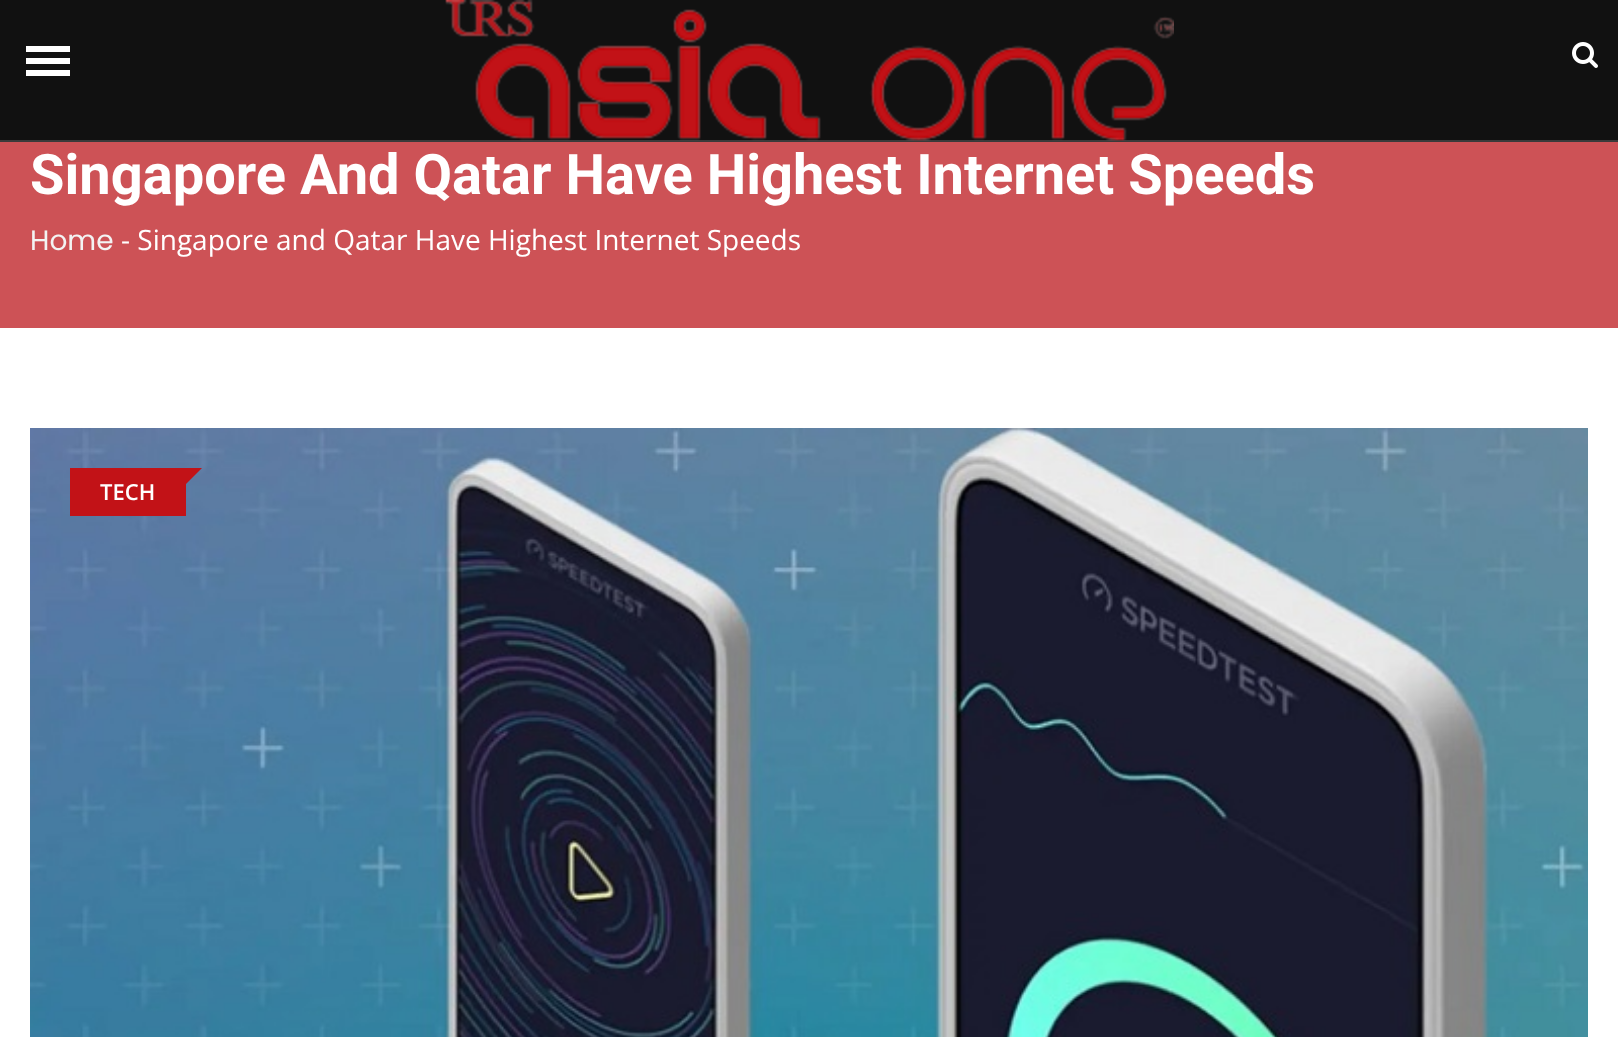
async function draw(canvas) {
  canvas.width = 1618
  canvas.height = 1037
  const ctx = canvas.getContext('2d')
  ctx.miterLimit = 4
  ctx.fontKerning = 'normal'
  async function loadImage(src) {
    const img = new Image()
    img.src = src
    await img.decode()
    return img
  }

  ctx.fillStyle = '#fff'
  ctx.fillRect(0, 0, 1618, 1037)
  ctx.fillStyle = '#3a3a3a'
  ctx.fillRect(0, 140, 1618, 2)
  ctx.fillStyle = '#111'
  ctx.fillRect(0, 0, 1618, 140)
  ctx.drawImage(await loadImage('image0.png'), 445, 0, 729, 141)
  ctx.fillStyle = '#fff'
  ctx.fillRect(26, 46, 44, 6)
  ctx.fillRect(26, 58, 44, 6)
  ctx.fillRect(26, 70, 44, 6)
  ctx.drawImage(await loadImage('image1.png'), 1572, 42, 26, 26)
  ctx.fillStyle = '#cd5256'
  ctx.fillRect(0, 142, 1618, 186)
  ctx.font = 'bold 56px Roboto'
  ctx.fillStyle = '#fff'
  ctx.fillText('Singapore And Qatar Have Highest Internet Speeds', 30, 194)
  ctx.font = '28px Poppins'
  ctx.fillStyle = '#f3f3f3'
  ctx.fillText('Home', 30, 250)
  ctx.font = '28px Open Sans'
  ctx.fillStyle = '#fff'
  ctx.fillText('- Singapore and Qatar Have Highest Internet Speeds', 121, 250)
  ctx.drawImage(await loadImage('image2.png'), 30, 428, 1558, 609)
  ctx.fillStyle = '#c21217'
  ctx.fillRect(70, 468, 116, 48)
  ctx.beginPath()
  ctx.moveTo(186, 468)
  ctx.lineTo(202, 468)
  ctx.lineTo(186, 484)
  ctx.closePath()
  ctx.fill()
  ctx.font = '600 22px Open Sans'
  ctx.fillStyle = '#fff'
  ctx.fillText('TECH', 100, 500)
}

draw(document.querySelector('canvas'))
